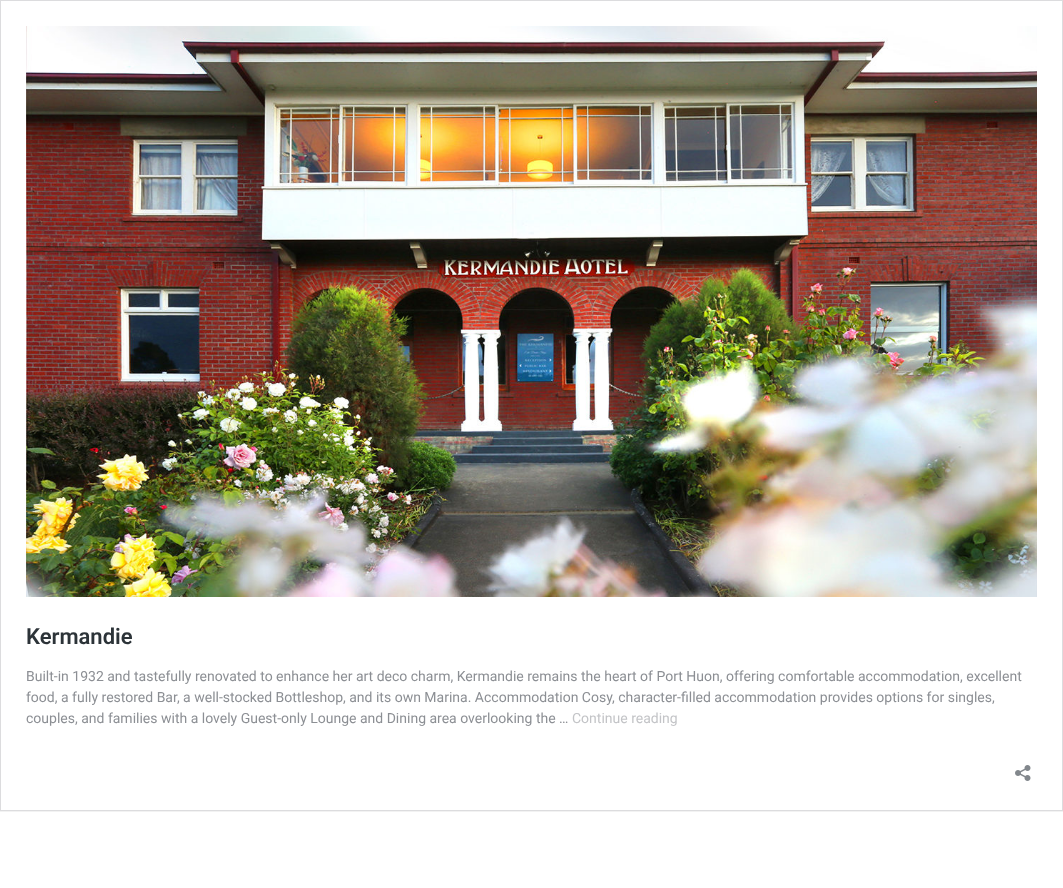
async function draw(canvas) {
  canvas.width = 1063
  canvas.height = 888
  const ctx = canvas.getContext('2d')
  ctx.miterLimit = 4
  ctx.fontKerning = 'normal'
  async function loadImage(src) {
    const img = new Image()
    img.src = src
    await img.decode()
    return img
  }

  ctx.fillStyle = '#fff'
  ctx.fillRect(0, 0, 1063, 888)
  ctx.save()
  ctx.beginPath()
  ctx.rect(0, 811, 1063, 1)
  ctx.clip()
  ctx.fillStyle = '#0000000d'
  ctx.filter = 'blur(0.5px)'
  ctx.beginPath()
  ctx.rect(0, 1, 1063, 811)
  ctx.fill()
  ctx.filter = 'none'
  ctx.restore()
  ctx.strokeStyle = '#dcdcde'
  ctx.strokeRect(0.5, 0.5, 1062, 810)
  ctx.drawImage(await loadImage('image0.png'), 26, 26, 1011, 571)
  ctx.font = '600 22px Roboto'
  ctx.fillStyle = '#2c3338'
  ctx.fillText('Kermandie', 26, 644)
  ctx.font = '14px Roboto'
  ctx.fillStyle = '#8c8f94'
  ctx.fillText('Built-in 1932 and tastefully renovated to enhance her art deco charm, Kermandie remains the heart of Port Huon, offering comfortable accommodation, excellent', 26, 681)
  ctx.fillText('food, a fully restored Bar, a well-stocked Bottleshop, and its own Marina. Accommodation Cosy, character-filled accommodation provides options for singles,', 26, 702)
  ctx.fillText('couples, and families with a lovely Guest-only Lounge and Dining area overlooking the …', 26, 723)
  ctx.fillStyle = '#c3c4c7'
  ctx.fillText('Continue reading', 572, 723)
  ctx.drawImage(await loadImage('image1.png'), 1015, 765, 16, 16)
}

draw(document.querySelector('canvas'))
